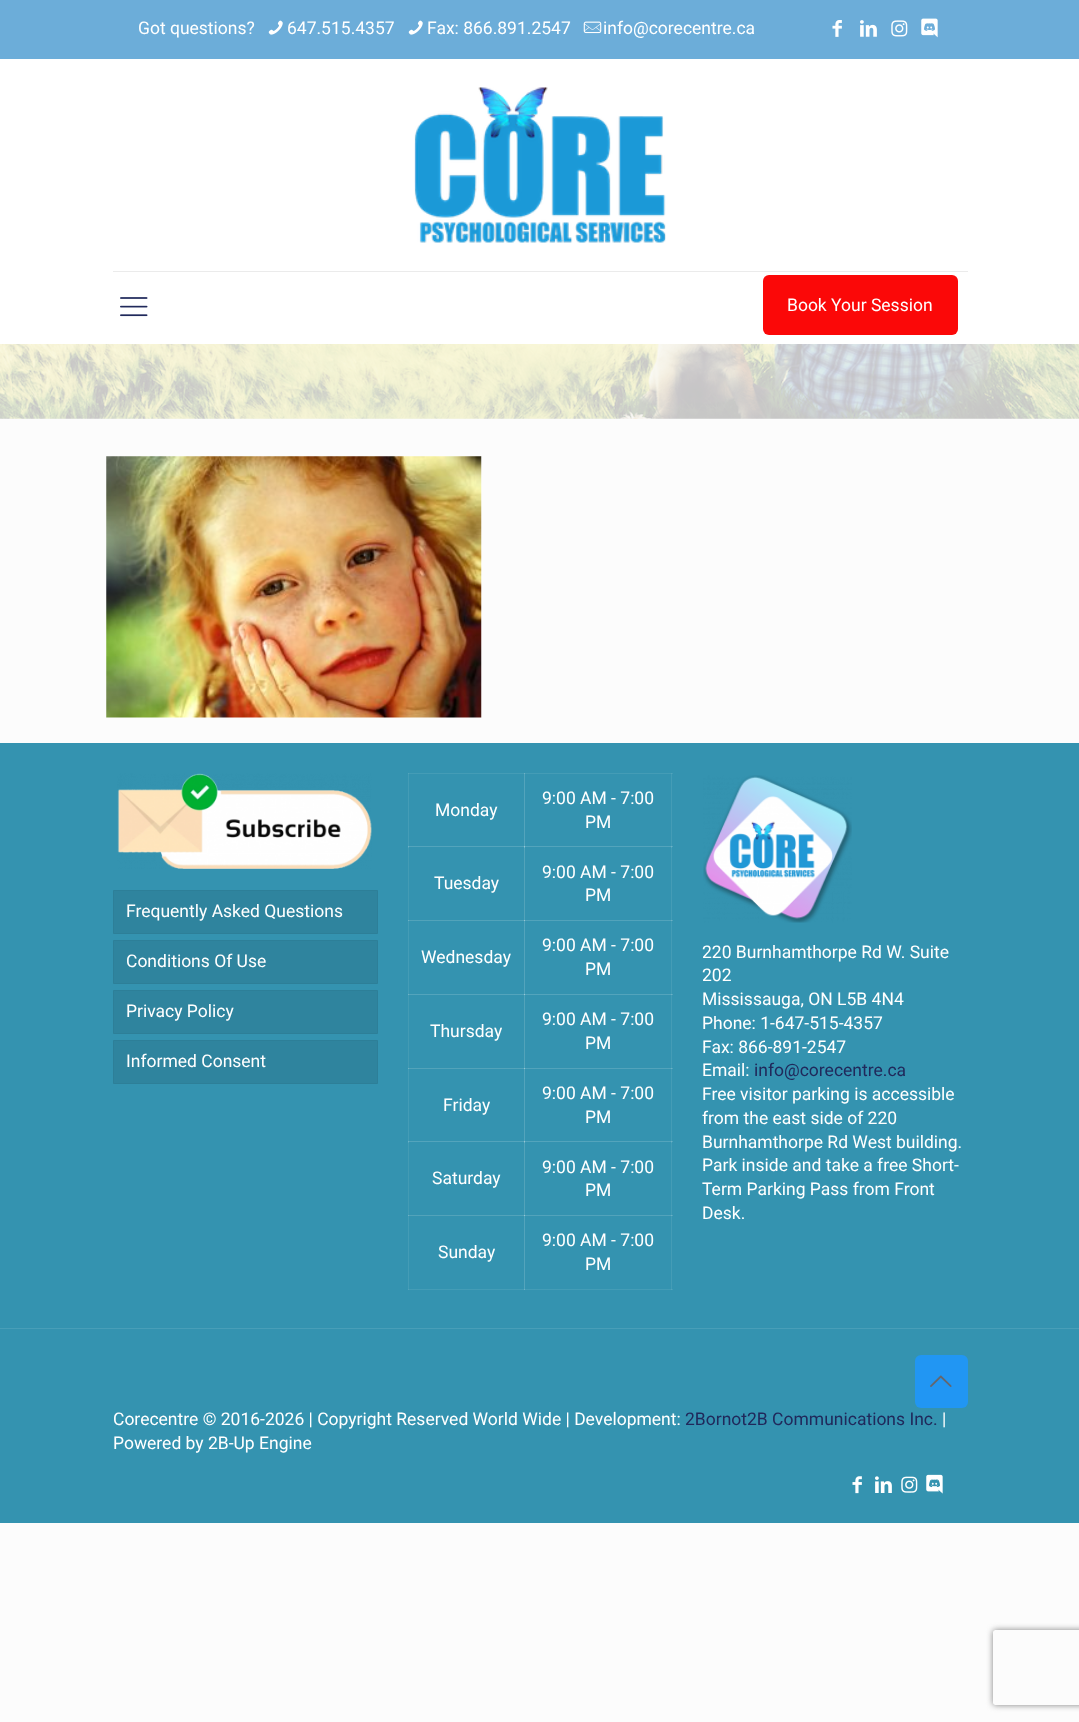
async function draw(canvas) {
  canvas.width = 1079
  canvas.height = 1722
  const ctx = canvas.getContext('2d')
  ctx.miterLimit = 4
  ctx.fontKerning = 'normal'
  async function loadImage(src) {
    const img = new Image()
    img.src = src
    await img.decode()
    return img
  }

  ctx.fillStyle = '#fcfcfc'
  ctx.fillRect(0, 0, 1079, 1722)
  ctx.drawImage(await loadImage('image0.png'), 0, 344, 1079, 75)
  ctx.fillStyle = '#6cadd9'
  ctx.fillRect(0, 0, 1079, 59)
  ctx.font = '17.5px Roboto'
  ctx.fillStyle = '#fff'
  ctx.fillText('Got questions?', 138, 34)
  ctx.drawImage(await loadImage('image1.png'), 268, 20, 15, 15)
  ctx.fillText('647.515.4357', 287, 34)
  ctx.drawImage(await loadImage('image1.png'), 408, 20, 15, 15)
  ctx.fillText('Fax: 866.891.2547', 427, 34)
  ctx.drawImage(await loadImage('image2.png'), 583, 21, 19, 13)
  ctx.fillText('info@corecentre.ca', 603, 34)
  ctx.drawImage(await loadImage('image3.png'), 832, 20, 10, 17)
  ctx.drawImage(await loadImage('image4.png'), 860, 20, 17, 17)
  ctx.drawImage(await loadImage('image5.png'), 891, 20, 17, 17)
  ctx.drawImage(await loadImage('image6.png'), 921, 18, 17, 20)
  ctx.fillRect(0, 59, 1079, 285)
  ctx.fillStyle = '#ebebeb'
  ctx.fillRect(113, 271, 855, 1)
  ctx.drawImage(await loadImage('image7.png'), 414, 87, 252, 156)
  ctx.drawImage(await loadImage('image8.png'), 120, 297, 28, 20)
  ctx.fillStyle = '#fb0808'
  ctx.beginPath()
  ctx.roundRect(763, 275, 195, 60, 6)
  ctx.fill()
  ctx.fillStyle = '#fff'
  ctx.fillText('Book Your Session', 787, 311)
  ctx.fillStyle = '#f7f7f7cc'
  ctx.fillRect(0, 344, 1079, 75)
  ctx.drawImage(await loadImage('image9.png'), 106, 456, 376, 262)
  ctx.fillStyle = '#3493b0'
  ctx.fillRect(0, 743, 1079, 780)
  ctx.fillStyle = '#449cb6'
  ctx.fillRect(408, 773, 1, 75)
  ctx.fillRect(408, 773, 117, 1)
  ctx.fillStyle = '#53a4bc'
  ctx.fillRect(408, 773, 1, 1)
  ctx.fillRect(524, 773, 1, 75)
  ctx.fillStyle = '#449cb6'
  ctx.fillRect(671, 773, 1, 443)
  ctx.fillStyle = '#53a4bc'
  ctx.fillRect(408, 846, 1, 2)
  ctx.fillRect(408, 846, 117, 1)
  ctx.fillStyle = '#6eb2c6'
  ctx.fillRect(408, 846, 1, 1)
  ctx.fillRect(524, 846, 1, 2)
  ctx.fillStyle = '#53a4bc'
  ctx.fillRect(671, 846, 1, 2)
  ctx.fillStyle = '#449cb6'
  ctx.fillRect(408, 920, 1, 75)
  ctx.fillStyle = '#53a4bc'
  ctx.fillRect(524, 920, 1, 75)
  ctx.fillRect(408, 994, 265, 1)
  ctx.fillStyle = '#6eb2c6'
  ctx.fillRect(408, 994, 1, 1)
  ctx.fillStyle = '#449cb6'
  ctx.fillRect(408, 1068, 1, 75)
  ctx.fillStyle = '#53a4bc'
  ctx.fillRect(524, 1068, 1, 75)
  ctx.fillRect(408, 1141, 1, 2)
  ctx.fillRect(408, 1141, 117, 1)
  ctx.fillStyle = '#6eb2c6'
  ctx.fillRect(408, 1141, 1, 1)
  ctx.fillRect(524, 1141, 1, 2)
  ctx.fillStyle = '#53a4bc'
  ctx.fillRect(671, 1141, 1, 2)
  ctx.fillStyle = '#449cb6'
  ctx.fillRect(408, 1215, 1, 75)
  ctx.fillRect(408, 1289, 117, 1)
  ctx.fillStyle = '#53a4bc'
  ctx.fillRect(408, 1289, 1, 1)
  ctx.fillRect(524, 1215, 1, 75)
  ctx.fillStyle = '#449cb6'
  ctx.fillRect(524, 1289, 149, 1)
  ctx.fillStyle = '#6eb2c6'
  ctx.fillRect(524, 1289, 1, 1)
  ctx.fillStyle = '#449cb6'
  ctx.fillRect(671, 1215, 1, 75)
  ctx.fillStyle = '#53a4bc'
  ctx.fillRect(671, 1289, 1, 1)
  ctx.drawImage(await loadImage('image10.png'), 117, 773, 255, 96)
  ctx.fillStyle = '#2f849e'
  ctx.beginPath()
  ctx.rect(113.5, 890.5, 264, 43)
  ctx.fill()
  ctx.strokeStyle = '#2d7f98'
  ctx.stroke()
  ctx.fillStyle = '#fff'
  ctx.fillText('Frequently Asked Questions', 126, 917)
  ctx.fillStyle = '#2f849e'
  ctx.beginPath()
  ctx.rect(113.5, 940.5, 264, 43)
  ctx.fill()
  ctx.stroke()
  ctx.fillStyle = '#fff'
  ctx.fillText('Conditions Of Use', 126, 967)
  ctx.fillStyle = '#2f849e'
  ctx.beginPath()
  ctx.rect(113.5, 990.5, 264, 43)
  ctx.fill()
  ctx.stroke()
  ctx.fillStyle = '#fff'
  ctx.fillText('Privacy Policy', 126, 1017)
  ctx.fillStyle = '#2f849e'
  ctx.beginPath()
  ctx.rect(113.5, 1040.5, 264, 43)
  ctx.fill()
  ctx.stroke()
  ctx.fillStyle = '#fff'
  ctx.fillText('Informed Consent', 126, 1067)
  ctx.fillText('Monday', 435, 816)
  ctx.fillStyle = '#449cb6'
  ctx.fillRect(524, 773, 149, 1)
  ctx.fillStyle = '#6eb2c6'
  ctx.fillRect(524, 773, 1, 1)
  ctx.fillStyle = '#53a4bc'
  ctx.fillRect(671, 773, 1, 1)
  ctx.fillStyle = '#fff'
  ctx.fillText('9:00 AM - 7:00', 542, 804)
  ctx.fillText('PM', 585, 828)
  ctx.fillStyle = '#439bb4'
  ctx.fillRect(408, 848, 1, 73)
  ctx.fillStyle = '#52a3ba'
  ctx.fillRect(408, 920, 116, 1)
  ctx.fillStyle = '#6db1c5'
  ctx.fillRect(408, 920, 1, 1)
  ctx.fillStyle = '#fff'
  ctx.fillText('Tuesday', 434, 889)
  ctx.fillStyle = '#52a3ba'
  ctx.fillRect(524, 848, 1, 73)
  ctx.fillStyle = '#53a4bc'
  ctx.fillRect(524, 846, 149, 1)
  ctx.fillStyle = '#98c8d7'
  ctx.fillRect(524, 846, 1, 1)
  ctx.fillStyle = '#6eb2c6'
  ctx.fillRect(671, 846, 1, 1)
  ctx.fillStyle = '#fff'
  ctx.fillText('9:00 AM - 7:00', 542, 878)
  ctx.fillText('PM', 585, 901)
  ctx.fillText('Wednesday', 421, 963)
  ctx.fillStyle = '#52a3bb'
  ctx.fillRect(524, 920, 149, 1)
  ctx.fillStyle = '#97c7d6'
  ctx.fillRect(524, 920, 1, 1)
  ctx.fillStyle = '#6db1c5'
  ctx.fillRect(671, 920, 1, 1)
  ctx.fillStyle = '#fff'
  ctx.fillText('9:00 AM - 7:00', 542, 951)
  ctx.fillText('PM', 585, 975)
  ctx.fillStyle = '#439bb4'
  ctx.fillRect(408, 995, 1, 74)
  ctx.fillStyle = '#52a3ba'
  ctx.fillRect(408, 1068, 116, 1)
  ctx.fillStyle = '#6db1c5'
  ctx.fillRect(408, 1068, 1, 1)
  ctx.fillStyle = '#fff'
  ctx.fillText('Thursday', 430, 1037)
  ctx.fillStyle = '#52a3ba'
  ctx.fillRect(524, 995, 1, 74)
  ctx.fillStyle = '#98c8d7'
  ctx.fillRect(524, 994, 1, 1)
  ctx.fillStyle = '#6eb2c6'
  ctx.fillRect(671, 994, 1, 1)
  ctx.fillStyle = '#fff'
  ctx.fillText('9:00 AM - 7:00', 542, 1025)
  ctx.fillText('PM', 585, 1049)
  ctx.fillText('Friday', 443, 1111)
  ctx.fillStyle = '#52a3bb'
  ctx.fillRect(524, 1068, 149, 1)
  ctx.fillStyle = '#97c7d6'
  ctx.fillRect(524, 1068, 1, 1)
  ctx.fillStyle = '#6db1c5'
  ctx.fillRect(671, 1068, 1, 1)
  ctx.fillStyle = '#fff'
  ctx.fillText('9:00 AM - 7:00', 542, 1099)
  ctx.fillText('PM', 585, 1123)
  ctx.fillStyle = '#439bb4'
  ctx.fillRect(408, 1143, 1, 73)
  ctx.fillStyle = '#52a3ba'
  ctx.fillRect(408, 1215, 116, 1)
  ctx.fillStyle = '#6db1c5'
  ctx.fillRect(408, 1215, 1, 1)
  ctx.fillStyle = '#fff'
  ctx.fillText('Saturday', 432, 1184)
  ctx.fillStyle = '#52a3ba'
  ctx.fillRect(524, 1143, 1, 73)
  ctx.fillStyle = '#53a4bc'
  ctx.fillRect(524, 1141, 149, 1)
  ctx.fillStyle = '#98c8d7'
  ctx.fillRect(524, 1141, 1, 1)
  ctx.fillStyle = '#6eb2c6'
  ctx.fillRect(671, 1141, 1, 1)
  ctx.fillStyle = '#fff'
  ctx.fillText('9:00 AM - 7:00', 542, 1173)
  ctx.fillText('PM', 585, 1196)
  ctx.fillText('Sunday', 438, 1258)
  ctx.fillStyle = '#52a3bb'
  ctx.fillRect(524, 1215, 149, 1)
  ctx.fillStyle = '#97c7d6'
  ctx.fillRect(524, 1215, 1, 1)
  ctx.fillStyle = '#6db1c5'
  ctx.fillRect(671, 1215, 1, 1)
  ctx.fillStyle = '#fff'
  ctx.fillText('9:00 AM - 7:00', 542, 1246)
  ctx.fillText('PM', 585, 1270)
  ctx.drawImage(await loadImage('image11.png'), 703, 775, 149, 148)
  ctx.fillText('220 Burnhamthorpe Rd W. Suite', 702, 958)
  ctx.fillText('202', 702, 981)
  ctx.fillText('Mississauga, ON L5B 4N4', 702, 1005)
  ctx.fillText('Phone: 1-647-515-4357', 702, 1029)
  ctx.fillText('Fax: 866-891-2547', 702, 1053)
  ctx.fillText('Email:', 702, 1076)
  ctx.fillStyle = '#20295b'
  ctx.fillText('info@corecentre.ca', 754, 1076)
  ctx.fillStyle = '#fff'
  ctx.fillText('Free visitor parking is accessible', 702, 1100)
  ctx.fillText('from the east side of 220', 702, 1124)
  ctx.fillText('Burnhamthorpe Rd West building.', 702, 1148)
  ctx.fillText('Park inside and take a free Short-', 702, 1171)
  ctx.fillText('Term Parking Pass from Front', 702, 1195)
  ctx.fillText('Desk.', 702, 1219)
  ctx.fillStyle = '#489eb8'
  ctx.fillRect(0, 1328, 1079, 1)
  ctx.fillStyle = '#2196f3'
  ctx.beginPath()
  ctx.roundRect(915, 1355, 53, 53, 6)
  ctx.fill()
  ctx.drawImage(await loadImage('image12.png'), 930, 1375, 22, 12)
  ctx.fillStyle = '#fff'
  ctx.fillText('Corecentre © 2016-2026 | Copyright Reserved World Wide | Development:', 113, 1425)
  ctx.fillStyle = '#20295b'
  ctx.fillText('2Bornot2B Communications Inc.', 685, 1425)
  ctx.fillStyle = '#fff'
  ctx.fillText('|', 942, 1425)
  ctx.fillText('Powered by 2B-Up Engine', 113, 1449)
  ctx.drawImage(await loadImage('image13.png'), 852, 1476, 10, 18)
  ctx.drawImage(await loadImage('image14.png'), 875, 1476, 17, 17)
  ctx.drawImage(await loadImage('image15.png'), 901, 1476, 17, 17)
  ctx.drawImage(await loadImage('image16.png'), 926, 1474, 17, 20)
  ctx.save()
  ctx.beginPath()
  ctx.moveTo(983, 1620)
  ctx.lineTo(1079, 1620)
  ctx.lineTo(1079, 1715)
  ctx.lineTo(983, 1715)
  ctx.closePath()
  ctx.moveTo(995.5, 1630)
  ctx.lineTo(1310.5, 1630)
  ctx.bezierCurveTo(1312, 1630, 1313, 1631, 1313, 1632.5)
  ctx.lineTo(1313, 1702.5)
  ctx.bezierCurveTo(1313, 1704, 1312, 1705, 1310.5, 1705)
  ctx.lineTo(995.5, 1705)
  ctx.bezierCurveTo(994, 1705, 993, 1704, 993, 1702.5)
  ctx.lineTo(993, 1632.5)
  ctx.bezierCurveTo(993, 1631, 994, 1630, 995.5, 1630)
  ctx.closePath()
  ctx.clip('evenodd')
  ctx.fillStyle = '#808080'
  ctx.filter = 'blur(3px)'
  ctx.beginPath()
  ctx.roundRect(993, 1630, 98, 75, 2.5)
  ctx.fill()
  ctx.filter = 'none'
  ctx.restore()
}

draw(document.querySelector('canvas'))
